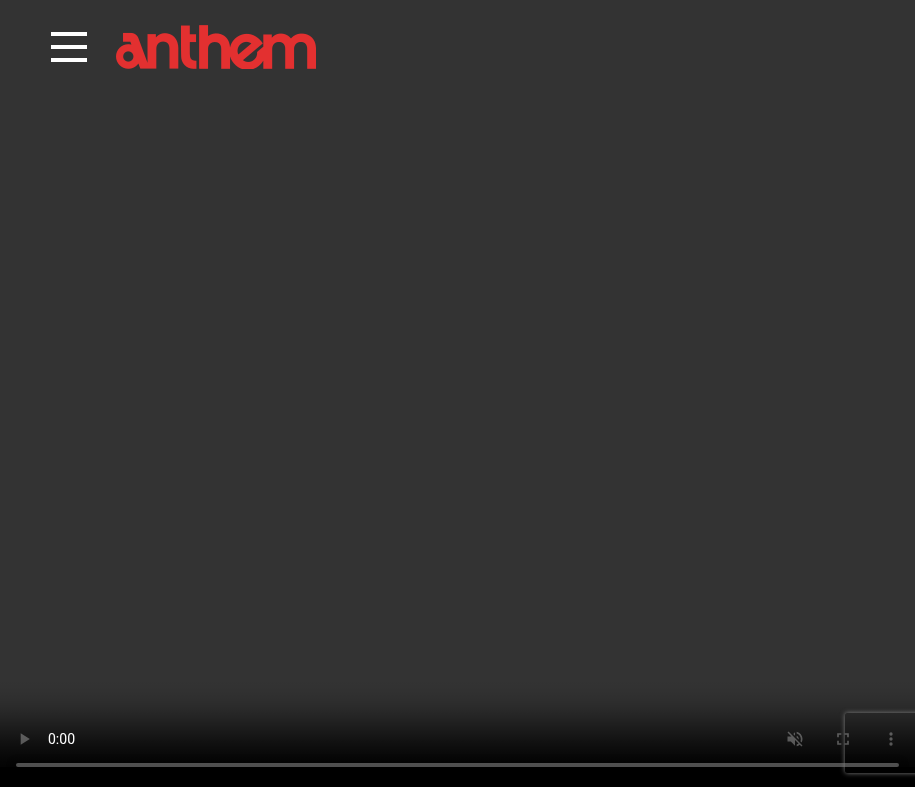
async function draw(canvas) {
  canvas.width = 915
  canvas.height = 787
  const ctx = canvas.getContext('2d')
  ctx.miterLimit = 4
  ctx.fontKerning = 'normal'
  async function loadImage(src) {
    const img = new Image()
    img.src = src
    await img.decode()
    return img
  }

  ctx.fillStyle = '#000'
  ctx.fillRect(0, 0, 915, 787)
  ctx.drawImage(await loadImage('image0.png'), 0, 0, 915, 767)
  ctx.fillStyle = '#fff'
  ctx.beginPath()
  ctx.moveTo(51, 32)
  ctx.lineTo(87, 32)
  ctx.lineTo(87, 36)
  ctx.lineTo(51, 36)
  ctx.closePath()
  ctx.moveTo(51, 45)
  ctx.lineTo(87, 45)
  ctx.lineTo(87, 49)
  ctx.lineTo(51, 49)
  ctx.closePath()
  ctx.moveTo(87, 58)
  ctx.lineTo(87, 62)
  ctx.lineTo(51, 62)
  ctx.lineTo(51, 58)
  ctx.closePath()
  ctx.fill()
  ctx.drawImage(await loadImage('image1.png'), 116, 25, 200, 44)
  ctx.save()
  ctx.beginPath()
  ctx.moveTo(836, 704)
  ctx.lineTo(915, 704)
  ctx.lineTo(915, 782)
  ctx.lineTo(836, 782)
  ctx.closePath()
  ctx.moveTo(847, 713)
  ctx.lineTo(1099, 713)
  ctx.bezierCurveTo(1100, 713, 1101, 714, 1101, 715)
  ctx.lineTo(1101, 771)
  ctx.bezierCurveTo(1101, 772, 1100, 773, 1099, 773)
  ctx.lineTo(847, 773)
  ctx.bezierCurveTo(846, 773, 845, 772, 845, 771)
  ctx.lineTo(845, 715)
  ctx.bezierCurveTo(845, 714, 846, 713, 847, 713)
  ctx.closePath()
  ctx.clip('evenodd')
  ctx.fillStyle = '#808080'
  ctx.filter = 'blur(2.5px)'
  ctx.beginPath()
  ctx.roundRect(845, 713, 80, 60, 2)
  ctx.fill()
  ctx.filter = 'none'
  ctx.restore()
}

draw(document.querySelector('canvas'))
